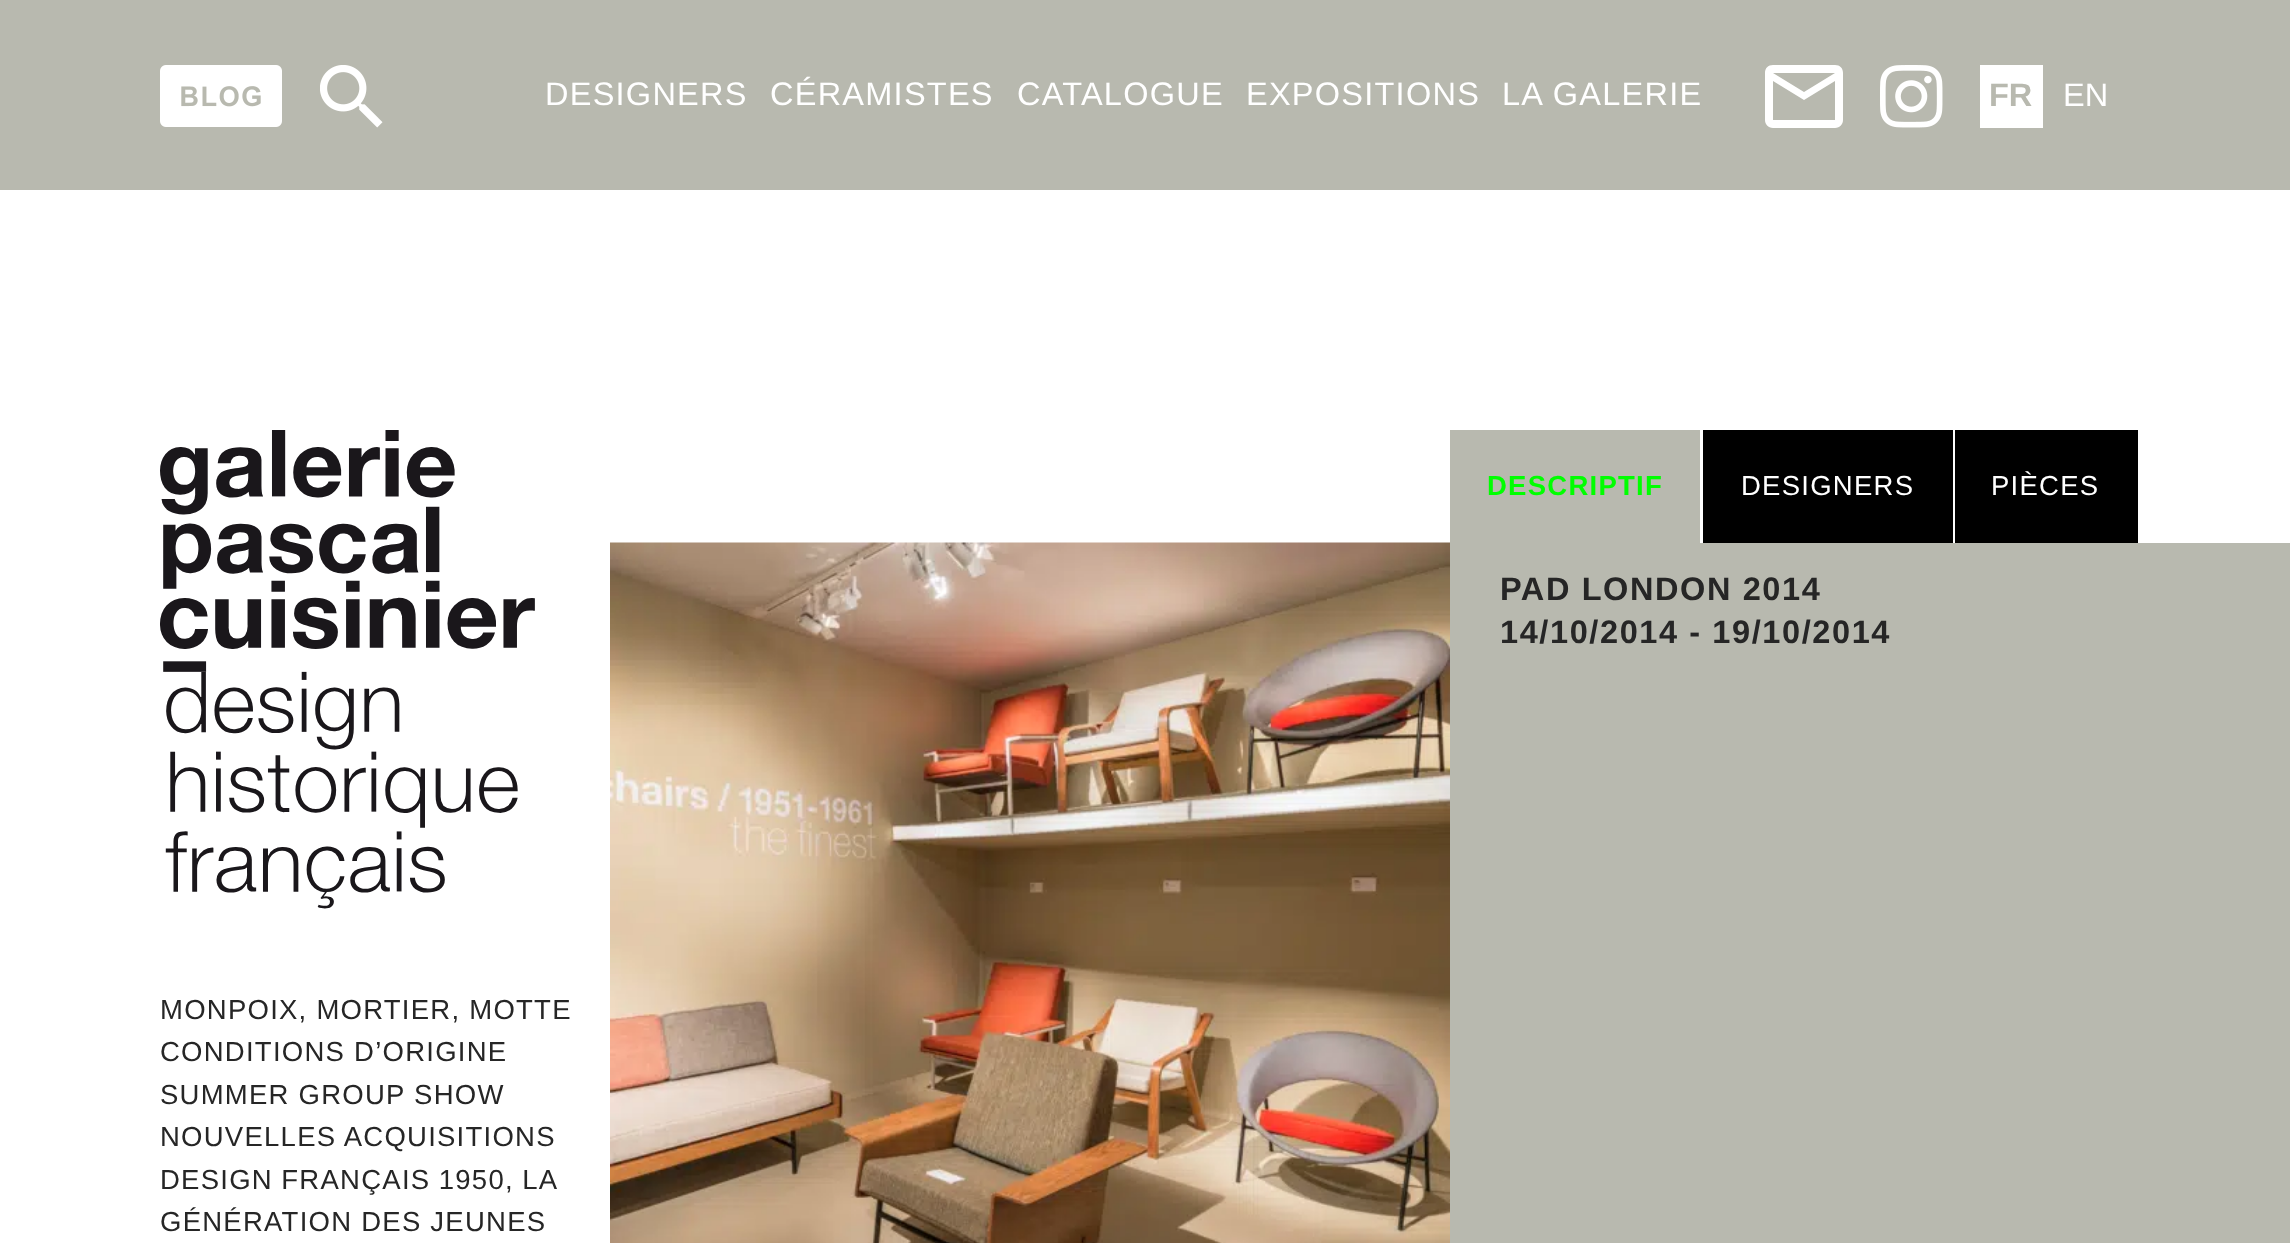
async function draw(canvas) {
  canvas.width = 2290
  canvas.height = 1243
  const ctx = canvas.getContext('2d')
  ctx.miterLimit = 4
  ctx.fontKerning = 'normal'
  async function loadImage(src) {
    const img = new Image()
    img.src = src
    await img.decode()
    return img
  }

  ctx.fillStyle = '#fff'
  ctx.fillRect(0, 0, 2290, 1243)
  ctx.fillStyle = '#b8b9af'
  ctx.fillRect(0, 0, 2290, 190)
  ctx.drawImage(await loadImage('image0.png'), 160, 65, 122, 62)
  ctx.drawImage(await loadImage('image1.png'), 320, 65, 63, 63)
  ctx.letterSpacing = '1.25px'
  ctx.font = '32.5px Liberation Sans'
  ctx.fillStyle = '#fff'
  ctx.fillText('DESIGNERS', 545, 105)
  ctx.fillText('CÉRAMISTES', 770, 105)
  ctx.fillText('CATALOGUE', 1017, 105)
  ctx.fillText('EXPOSITIONS', 1246, 105)
  ctx.fillText('LA GALERIE', 1502, 105)
  ctx.beginPath()
  ctx.moveTo(1843, 73)
  ctx.bezierCurveTo(1843, 68, 1840, 65, 1835, 65)
  ctx.lineTo(1773, 65)
  ctx.bezierCurveTo(1768, 65, 1765, 68, 1765, 73)
  ctx.lineTo(1765, 120)
  ctx.bezierCurveTo(1765, 124, 1768, 128, 1773, 128)
  ctx.lineTo(1835, 128)
  ctx.bezierCurveTo(1840, 128, 1843, 124, 1843, 120)
  ctx.closePath()
  ctx.moveTo(1835, 73)
  ctx.lineTo(1804, 92)
  ctx.lineTo(1773, 73)
  ctx.closePath()
  ctx.moveTo(1835, 120)
  ctx.lineTo(1773, 120)
  ctx.lineTo(1773, 81)
  ctx.lineTo(1804, 100)
  ctx.lineTo(1835, 81)
  ctx.closePath()
  ctx.fill()
  ctx.drawImage(await loadImage('image2.png'), 1880, 65, 63, 63)
  ctx.fillRect(1980, 65, 63, 63)
  ctx.letterSpacing = '0px'
  ctx.font = 'bold 32.5px Liberation Sans'
  ctx.fillStyle = '#b8b9af'
  ctx.fillText('FR', 1989, 106)
  ctx.font = '32.5px Liberation Sans'
  ctx.fillStyle = '#fff'
  ctx.fillText('EN', 2063, 106)
  ctx.drawImage(await loadImage('image3.png'), 610, 542, 840, 701)
  ctx.fillStyle = '#b8b9af'
  ctx.fillRect(1450, 543, 840, 700)
  ctx.fillRect(1450, 430, 250, 113)
  ctx.letterSpacing = '1.25px'
  ctx.font = 'bold 27.5px Liberation Sans'
  ctx.fillStyle = '#0f0'
  ctx.fillText('DESCRIPTIF', 1487, 495)
  ctx.fillStyle = '#000'
  ctx.fillRect(1703, 430, 250, 113)
  ctx.font = '27.5px Liberation Sans'
  ctx.fillStyle = '#fff'
  ctx.fillText('DESIGNERS', 1741, 495)
  ctx.fillStyle = '#000'
  ctx.fillRect(1955, 430, 183, 113)
  ctx.fillStyle = '#fff'
  ctx.fillText('PIÈCES', 1991, 495)
  ctx.letterSpacing = '1.6px'
  ctx.font = 'bold 32.5px Liberation Sans'
  ctx.fillStyle = '#262626'
  ctx.fillText('PAD LONDON 2014', 1500, 600)
  ctx.fillText('14/10/2014 - 19/10/2014', 1500, 643)
  ctx.drawImage(await loadImage('image4.png'), 160, 430, 375, 479)
  ctx.letterSpacing = '1.25px'
  ctx.font = '27.5px Liberation Sans'
  ctx.fillText('MONPOIX, MORTIER, MOTTE', 160, 1019)
  ctx.fillText('CONDITIONS D’ORIGINE', 160, 1061)
  ctx.fillText('SUMMER GROUP SHOW', 160, 1104)
  ctx.fillText('NOUVELLES ACQUISITIONS', 160, 1146)
  ctx.wordSpacing = '-0.5px'
  ctx.fillText('DESIGN FRANÇAIS 1950, LA', 160, 1189)
  ctx.wordSpacing = '0px'
  ctx.fillText('GÉNÉRATION DES JEUNES', 160, 1231)
}

draw(document.querySelector('canvas'))
